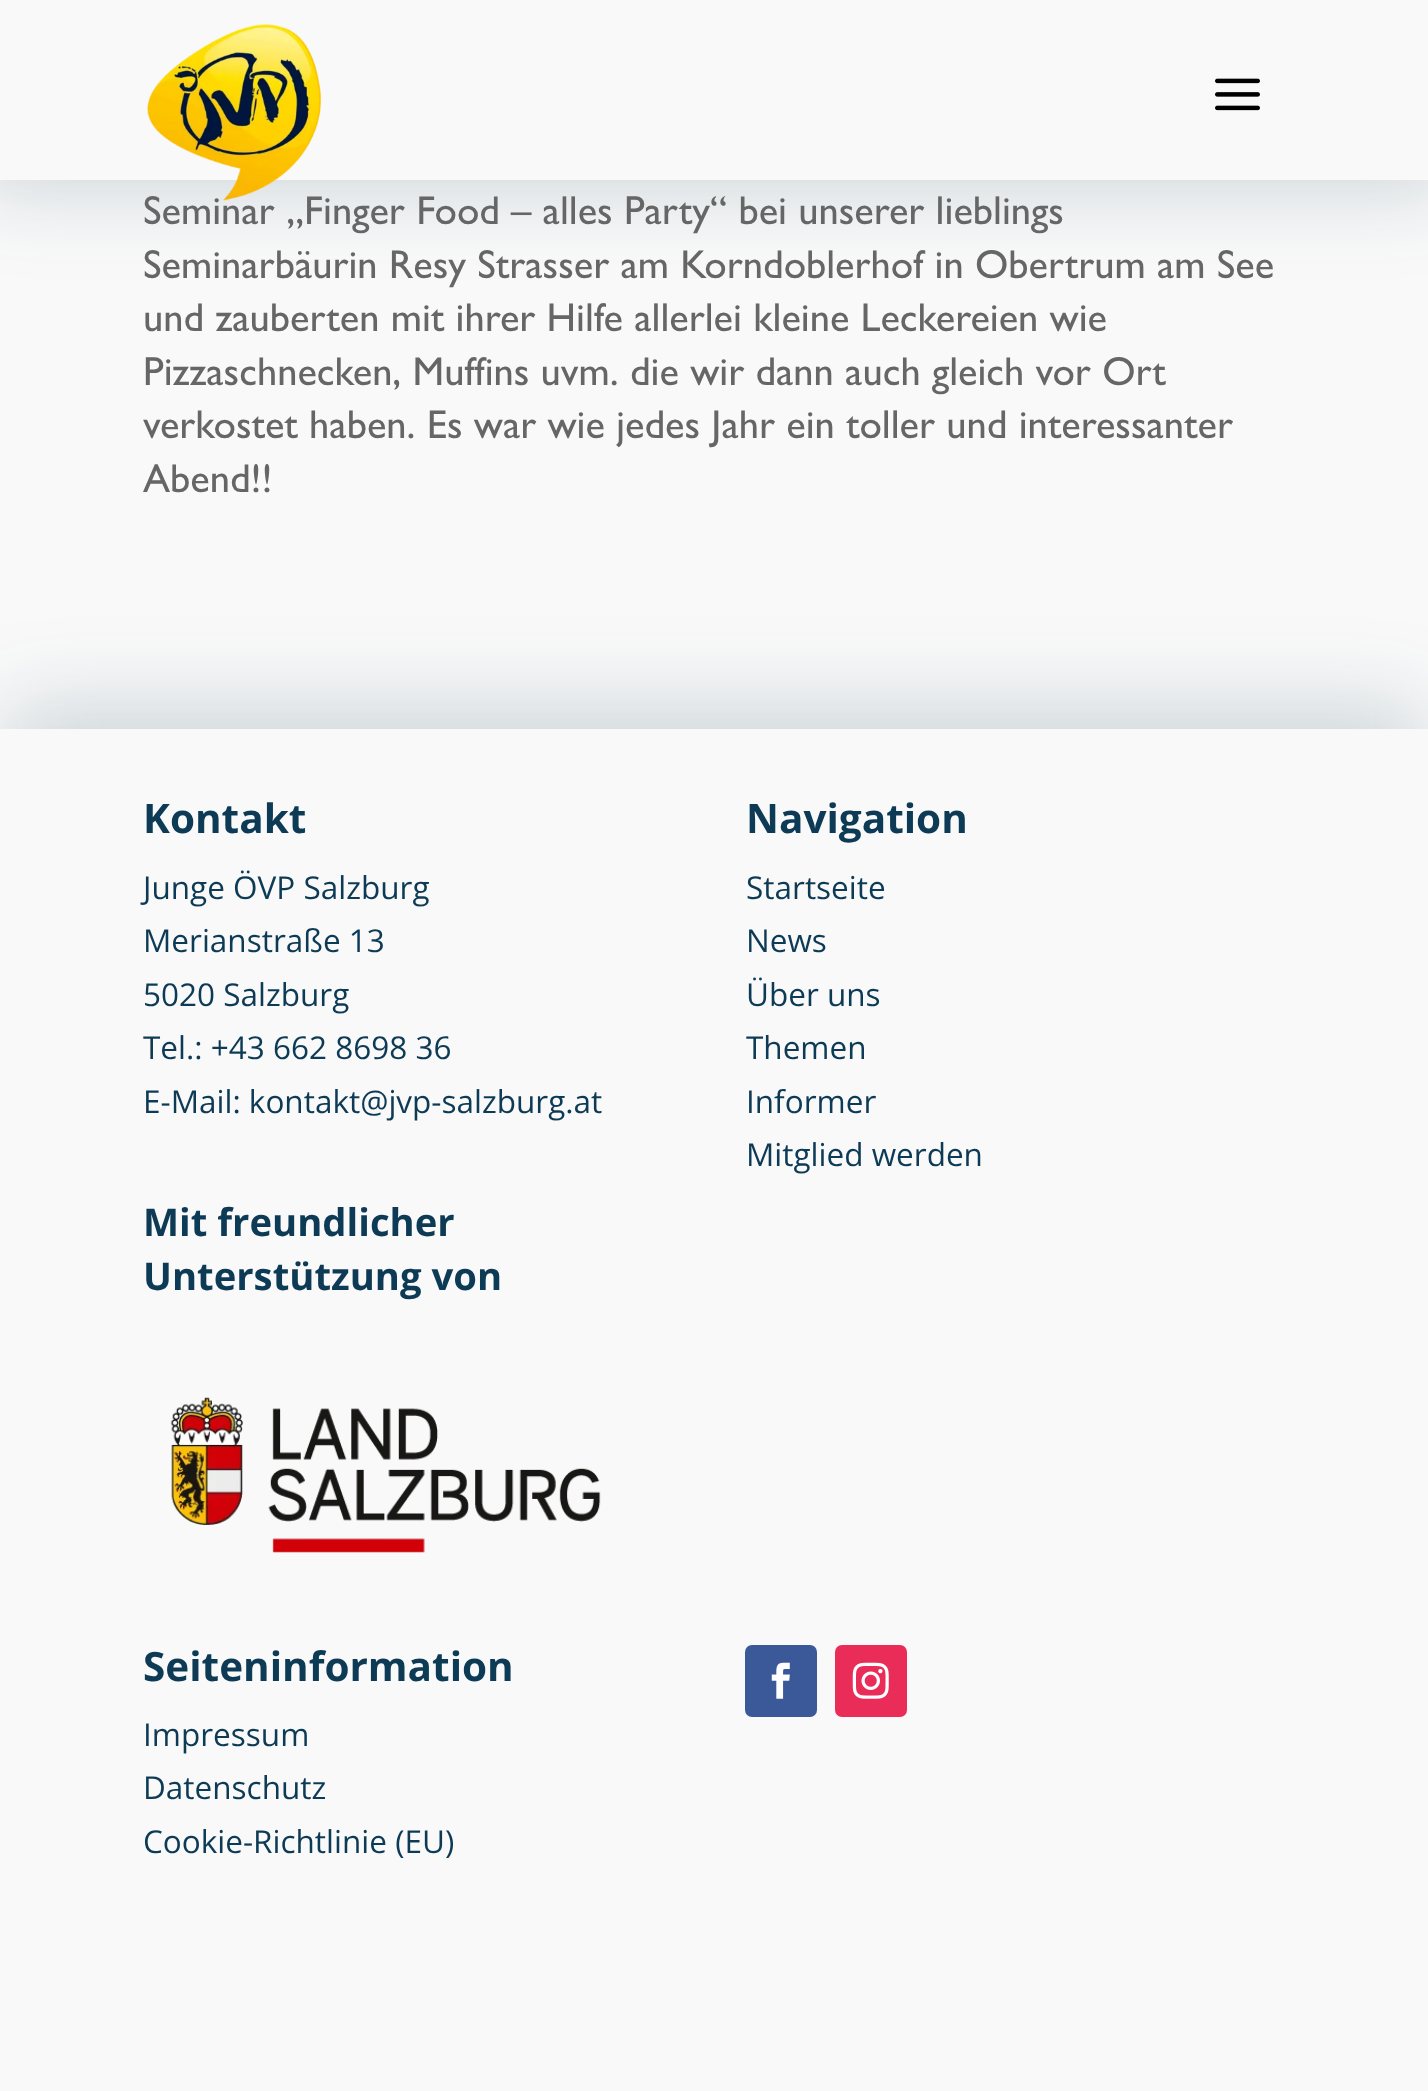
async function draw(canvas) {
  canvas.width = 1428
  canvas.height = 2091
  const ctx = canvas.getContext('2d')
  ctx.miterLimit = 4
  ctx.fontKerning = 'normal'
  async function loadImage(src) {
    const img = new Image()
    img.src = src
    await img.decode()
    return img
  }

  ctx.fillStyle = '#f9f9f9'
  ctx.fillRect(0, 0, 1428, 2091)
  ctx.fillStyle = '#0d3a5533'
  ctx.filter = 'blur(45px)'
  ctx.beginPath()
  ctx.rect(-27, -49, 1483, 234)
  ctx.fill()
  ctx.filter = 'none'
  ctx.fillStyle = '#f9f9f9'
  ctx.fillRect(0, 0, 1428, 180)
  ctx.font = '40.5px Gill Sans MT'
  ctx.fillStyle = '#666'
  ctx.fillText('Seminar „Finger Food – alles Party“ bei unserer lieblings', 143, 224)
  ctx.drawImage(await loadImage('image0.png'), 147, 24, 175, 177)
  ctx.drawImage(await loadImage('image1.png'), 1215, 78, 45, 33)
  ctx.fillText('Seminarbäurin Resy Strasser am Korndoblerhof in Obertrum am See', 143, 278)
  ctx.fillText('und zauberten mit ihrer Hilfe allerlei kleine Leckereien wie', 143, 331)
  ctx.fillText('Pizzaschnecken, Muffins uvm. die wir dann auch gleich vor Ort', 143, 385)
  ctx.fillText('verkostet haben. Es war wie jedes Jahr ein toller und interessanter', 143, 438)
  ctx.fillText('Abend!!', 143, 492)
  ctx.fillStyle = '#0d3a5533'
  ctx.filter = 'blur(45px)'
  ctx.beginPath()
  ctx.rect(5, 711, 1419, 1355)
  ctx.fill()
  ctx.filter = 'none'
  ctx.fillStyle = '#f9f9f9'
  ctx.fillRect(0, 729, 1428, 1362)
  ctx.font = 'bold 40.5px Open Sans'
  ctx.fillStyle = '#0d3a55'
  ctx.fillText('Kontakt', 143, 833)
  ctx.font = '31.5px Open Sans'
  ctx.fillText('Junge ÖVP Salzburg', 143, 899)
  ctx.fillText('Merianstraße 13', 143, 952)
  ctx.fillText('5020 Salzburg', 143, 1006)
  ctx.fillText('Tel.: +43 662 8698 36', 143, 1059)
  ctx.fillText('E-Mail: kontakt@jvp-salzburg.at', 143, 1113)
  ctx.font = 'bold 38.25px Open Sans'
  ctx.fillText('Mit freundlicher', 143, 1236)
  ctx.fillText('Unterstützung von', 143, 1290)
  ctx.drawImage(await loadImage('image2.png'), 170, 1397, 431, 156)
  ctx.font = 'bold 40.5px Open Sans'
  ctx.fillText('Navigation', 746, 833)
  ctx.font = '31.5px Open Sans'
  ctx.fillText('Startseite', 746, 899)
  ctx.fillText('News', 746, 952)
  ctx.fillText('Über uns', 746, 1006)
  ctx.fillText('Themen', 746, 1059)
  ctx.fillText('Informer', 746, 1113)
  ctx.fillText('Mitglied werden', 746, 1166)
  ctx.font = 'bold 40.5px Open Sans'
  ctx.fillText('Seiteninformation', 143, 1681)
  ctx.font = '31.5px Open Sans'
  ctx.fillText('Impressum', 143, 1746)
  ctx.fillText('Datenschutz', 143, 1799)
  ctx.fillText('Cookie-Richtlinie (EU)', 143, 1853)
  ctx.fillStyle = '#3b5998'
  ctx.beginPath()
  ctx.roundRect(745, 1645, 72, 72, 7)
  ctx.fill()
  ctx.drawImage(await loadImage('image3.png'), 771, 1662, 19, 37)
  ctx.fillStyle = '#ea2c59'
  ctx.beginPath()
  ctx.roundRect(835, 1645, 72, 72, 7)
  ctx.fill()
  ctx.drawImage(await loadImage('image4.png'), 852, 1662, 37, 37)
}

draw(document.querySelector('canvas'))
